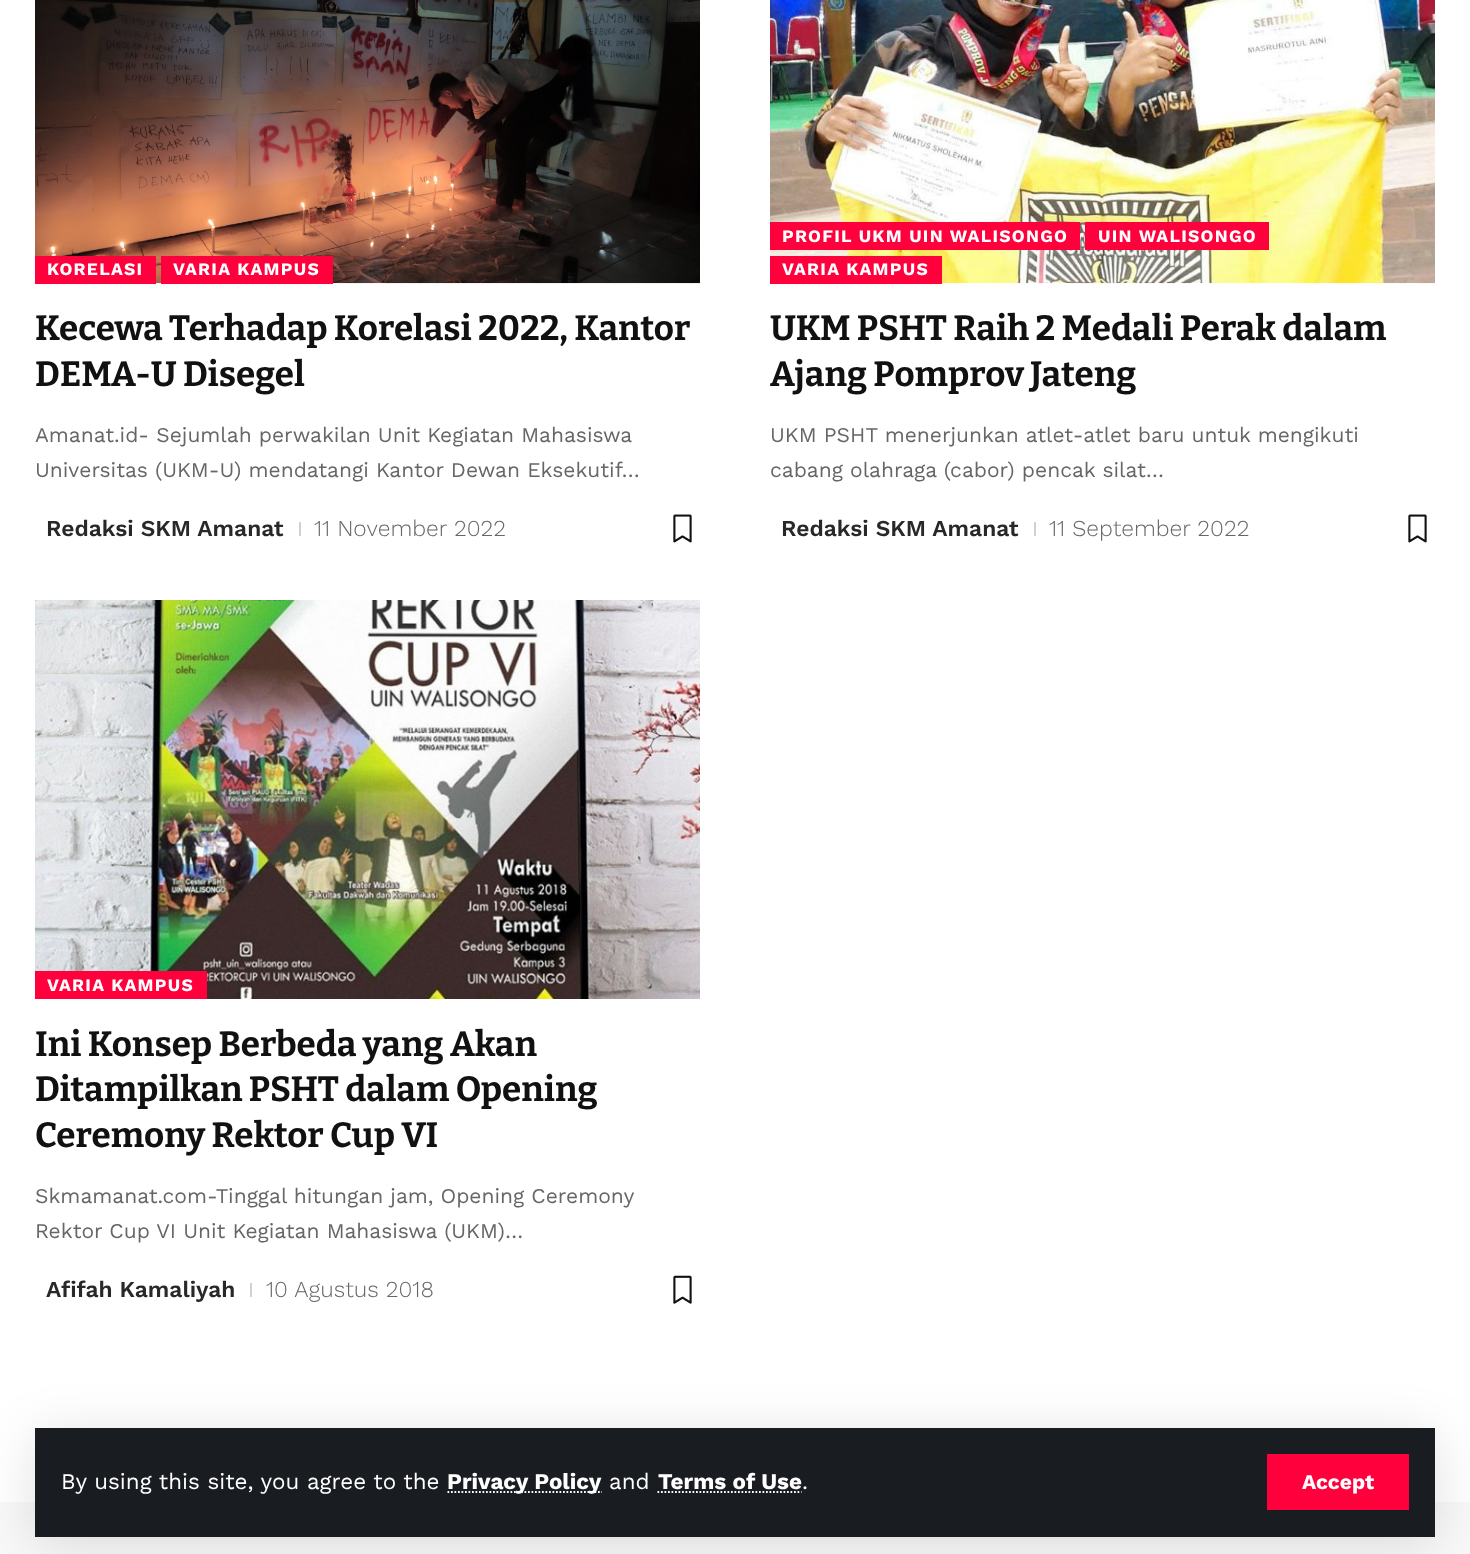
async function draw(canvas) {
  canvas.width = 1470
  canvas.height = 1554
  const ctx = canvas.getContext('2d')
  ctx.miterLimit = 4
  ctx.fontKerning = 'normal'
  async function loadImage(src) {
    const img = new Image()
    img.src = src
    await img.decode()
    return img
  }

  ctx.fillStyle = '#fff'
  ctx.fillRect(0, 0, 1470, 1554)
  ctx.drawImage(await loadImage('image0.png'), 35, 0, 665, 284)
  ctx.fillStyle = '#ff003c'
  ctx.fillRect(35, 256, 121, 28)
  ctx.letterSpacing = '1.25px'
  ctx.font = 'bold 17.5px Work Sans'
  ctx.fillStyle = '#fff'
  ctx.fillText('KORELASI', 47, 275)
  ctx.fillStyle = '#ff003c'
  ctx.fillRect(161, 256, 172, 28)
  ctx.fillStyle = '#fff'
  ctx.fillText('VARIA KAMPUS', 173, 275)
  ctx.letterSpacing = '0px'
  ctx.font = 'bold 35px Bitter'
  ctx.fillStyle = '#111'
  ctx.fillText('Kecewa Terhadap Korelasi 2022, Kantor', 35, 340)
  ctx.fillText('DEMA-U Disegel', 35, 386)
  ctx.font = '21px Work Sans'
  ctx.fillStyle = '#666'
  ctx.fillText('Amanat.id- Sejumlah perwakilan Unit Kegiatan Mahasiswa', 35, 442)
  ctx.fillText('Universitas (UKM-U) mendatangi Kantor Dewan Eksekutif…', 35, 477)
  ctx.font = '600 22.75px Work Sans'
  ctx.fillStyle = '#282828'
  ctx.fillText('Redaksi SKM Amanat', 46, 536)
  ctx.fillStyle = '#d1d1d1'
  ctx.fillRect(299, 522, 2, 14)
  ctx.font = '300 22.75px Work Sans'
  ctx.fillStyle = '#666'
  ctx.fillText('11 November 2022', 314, 536)
  ctx.drawImage(await loadImage('image1.png'), 673, 514, 19, 29)
  ctx.drawImage(await loadImage('image2.png'), 770, 0, 665, 284)
  ctx.fillStyle = '#ff003c'
  ctx.fillRect(770, 222, 310, 28)
  ctx.letterSpacing = '1.25px'
  ctx.font = 'bold 17.5px Work Sans'
  ctx.fillStyle = '#fff'
  ctx.fillText('PROFIL UKM UIN WALISONGO', 782, 242)
  ctx.fillStyle = '#ff003c'
  ctx.fillRect(1085, 222, 184, 28)
  ctx.fillStyle = '#fff'
  ctx.fillText('UIN WALISONGO', 1098, 242)
  ctx.fillStyle = '#ff003c'
  ctx.fillRect(770, 256, 172, 28)
  ctx.fillStyle = '#fff'
  ctx.fillText('VARIA KAMPUS', 782, 275)
  ctx.letterSpacing = '0px'
  ctx.font = 'bold 35px Bitter'
  ctx.fillStyle = '#111'
  ctx.fillText('UKM PSHT Raih 2 Medali Perak dalam', 770, 340)
  ctx.fillText('Ajang Pomprov Jateng', 770, 386)
  ctx.font = '21px Work Sans'
  ctx.fillStyle = '#666'
  ctx.fillText('UKM PSHT menerjunkan atlet-atlet baru untuk mengikuti', 770, 442)
  ctx.fillText('cabang olahraga (cabor) pencak silat…', 770, 477)
  ctx.font = '600 22.75px Work Sans'
  ctx.fillStyle = '#282828'
  ctx.fillText('Redaksi SKM Amanat', 781, 536)
  ctx.fillStyle = '#d1d1d1'
  ctx.fillRect(1034, 522, 2, 14)
  ctx.font = '300 22.75px Work Sans'
  ctx.fillStyle = '#666'
  ctx.fillText('11 September 2022', 1049, 536)
  ctx.drawImage(await loadImage('image1.png'), 1408, 514, 19, 29)
  ctx.drawImage(await loadImage('image3.png'), 35, 600, 665, 399)
  ctx.fillStyle = '#ff003c'
  ctx.fillRect(35, 971, 172, 28)
  ctx.letterSpacing = '1.25px'
  ctx.font = 'bold 17.5px Work Sans'
  ctx.fillStyle = '#fff'
  ctx.fillText('VARIA KAMPUS', 47, 991)
  ctx.letterSpacing = '0px'
  ctx.font = 'bold 35px Bitter'
  ctx.fillStyle = '#111'
  ctx.fillText('Ini Konsep Berbeda yang Akan', 35, 1056)
  ctx.fillText('Ditampilkan PSHT dalam Opening', 35, 1101)
  ctx.fillText('Ceremony Rektor Cup VI', 35, 1147)
  ctx.font = '21px Work Sans'
  ctx.fillStyle = '#666'
  ctx.fillText('Skmamanat.com-Tinggal hitungan jam, Opening Ceremony', 35, 1203)
  ctx.fillText('Rektor Cup VI Unit Kegiatan Mahasiswa (UKM)…', 35, 1238)
  ctx.font = '600 22.75px Work Sans'
  ctx.fillStyle = '#282828'
  ctx.fillText('Afifah Kamaliyah', 46, 1297)
  ctx.fillStyle = '#d1d1d1'
  ctx.fillRect(250, 1283, 2, 14)
  ctx.font = '300 22.75px Work Sans'
  ctx.fillStyle = '#666'
  ctx.fillText('10 Agustus 2018', 266, 1297)
  ctx.drawImage(await loadImage('image4.png'), 673, 1275, 19, 29)
  ctx.fillStyle = '#f8f8f8'
  ctx.fillRect(0, 1502, 1470, 52)
  ctx.fillStyle = '#0000001f'
  ctx.filter = 'blur(26px)'
  ctx.beginPath()
  ctx.rect(35, 1435, 1400, 109)
  ctx.fill()
  ctx.filter = 'none'
  ctx.fillStyle = '#191c20'
  ctx.fillRect(35, 1428, 1400, 109)
  ctx.font = '22.4px Work Sans'
  ctx.fillStyle = '#fff'
  ctx.fillText('By using this site, you agree to the', 61, 1489)
  ctx.beginPath()
  ctx.moveTo(447.5, 1492)
  ctx.lineTo(602, 1492)
  ctx.strokeStyle = '#fff'
  ctx.lineWidth = 1.8
  ctx.setLineDash([1.75, 1.75])
  ctx.stroke()
  ctx.font = 'bold 22.4px Work Sans'
  ctx.fillText('Privacy Policy', 447, 1489)
  ctx.font = '22.4px Work Sans'
  ctx.fillText('and', 609, 1489)
  ctx.font = 'bold 22.4px Work Sans'
  ctx.fillText('Terms of Use', 658, 1489)
  ctx.beginPath()
  ctx.moveTo(657.5, 1492)
  ctx.lineTo(801.5, 1492)
  ctx.stroke()
  ctx.font = '22.4px Work Sans'
  ctx.fillText('.', 802, 1489)
  ctx.fillStyle = '#ff003c'
  ctx.fillRect(1267, 1454, 142, 56)
  ctx.font = 'bold 21px Work Sans'
  ctx.fillStyle = '#fff'
  ctx.fillText('Accept', 1302, 1489)
}

draw(document.querySelector('canvas'))
